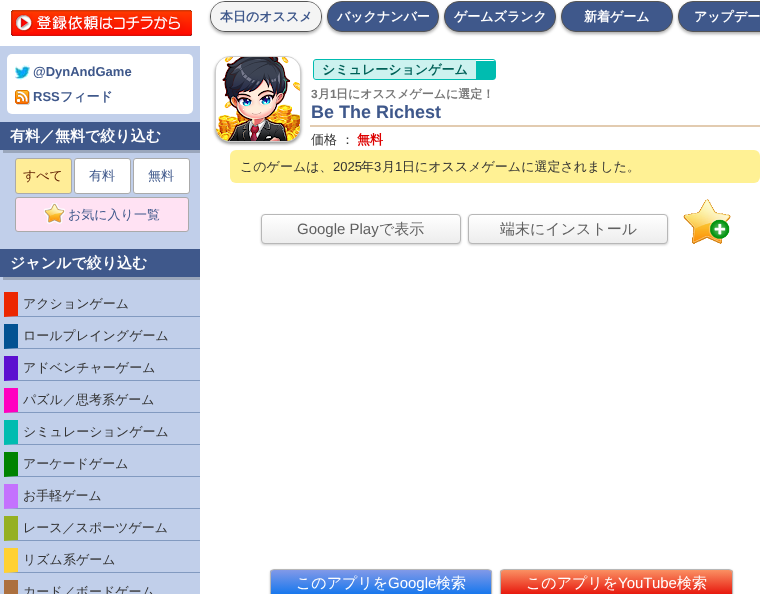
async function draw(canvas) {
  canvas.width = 760
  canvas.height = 594
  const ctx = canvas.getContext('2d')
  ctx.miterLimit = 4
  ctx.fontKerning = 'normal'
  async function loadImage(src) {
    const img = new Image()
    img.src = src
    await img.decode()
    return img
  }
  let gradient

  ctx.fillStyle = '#fff'
  ctx.fillRect(0, 0, 760, 594)
  ctx.drawImage(await loadImage('image0.png'), 11, 10, 181, 26)
  ctx.fillStyle = '#0000004d'
  ctx.filter = 'blur(1.5px)'
  ctx.beginPath()
  ctx.roundRect(210, 3, 112, 31, 15)
  ctx.fill()
  ctx.filter = 'none'
  ctx.beginPath()
  ctx.roundRect(210.5, 1.5, 111, 30, 14.5)
  ctx.strokeStyle = '#555'
  ctx.stroke()
  ctx.fillStyle = '#f4f4f4'
  ctx.beginPath()
  ctx.roundRect(211, 2, 110, 29, 14)
  ctx.fill()
  ctx.font = 'bold 13px WenQuanYi Zen Hei'
  ctx.fillStyle = '#3f588b'
  ctx.fillText('本日のオススメ', 220, 21)
  ctx.fillStyle = '#0000004d'
  ctx.filter = 'blur(1.5px)'
  ctx.beginPath()
  ctx.roundRect(327, 3, 112, 31, 15)
  ctx.fill()
  ctx.filter = 'none'
  ctx.fillStyle = '#3f588b'
  ctx.beginPath()
  ctx.roundRect(327.5, 1.5, 111, 30, 14.5)
  ctx.fill()
  ctx.stroke()
  ctx.fillStyle = '#fff'
  ctx.fillText('バックナンバー', 337, 21)
  ctx.fillStyle = '#0000004d'
  ctx.filter = 'blur(1.5px)'
  ctx.beginPath()
  ctx.roundRect(444, 3, 112, 31, 15)
  ctx.fill()
  ctx.filter = 'none'
  ctx.fillStyle = '#3f588b'
  ctx.beginPath()
  ctx.roundRect(444.5, 1.5, 111, 30, 14.5)
  ctx.fill()
  ctx.stroke()
  ctx.fillStyle = '#fff'
  ctx.fillText('ゲームズランク', 454, 21)
  ctx.fillStyle = '#0000004d'
  ctx.filter = 'blur(1.5px)'
  ctx.beginPath()
  ctx.roundRect(561, 3, 112, 31, 15)
  ctx.fill()
  ctx.filter = 'none'
  ctx.fillStyle = '#3f588b'
  ctx.beginPath()
  ctx.roundRect(561.5, 1.5, 111, 30, 14.5)
  ctx.fill()
  ctx.stroke()
  ctx.fillStyle = '#fff'
  ctx.fillText('新着ゲーム', 584, 21)
  ctx.fillStyle = '#0000004d'
  ctx.filter = 'blur(1.5px)'
  ctx.beginPath()
  ctx.roundRect(678, 3, 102, 31, 15)
  ctx.fill()
  ctx.filter = 'none'
  ctx.fillStyle = '#3f588b'
  ctx.beginPath()
  ctx.roundRect(678.5, 1.5, 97, 30, 14.5)
  ctx.fill()
  ctx.stroke()
  ctx.fillStyle = '#fff'
  ctx.fillText('アップデー', 694, 21)
  ctx.fillStyle = '#c1cfea'
  ctx.fillRect(0, 46, 200, 548)
  ctx.fillStyle = '#fff'
  ctx.beginPath()
  ctx.roundRect(7, 54, 186, 60, 5)
  ctx.fill()
  ctx.drawImage(await loadImage('image1.png'), 15, 65, 15, 15)
  ctx.font = 'bold 13px Liberation Sans'
  ctx.fillStyle = '#3f588b'
  ctx.fillText('@DynAndGame', 33, 76)
  ctx.drawImage(await loadImage('image2.png'), 15, 90, 15, 15)
  ctx.fillText('RSS', 33, 101)
  ctx.font = 'bold 13px WenQuanYi Zen Hei'
  ctx.fillText('フィード', 60, 101)
  ctx.save()
  ctx.beginPath()
  ctx.rect(0, 46, 200, 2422)
  ctx.clip()
  ctx.fillStyle = '#9aa6bb'
  ctx.beginPath()
  ctx.moveTo(3, 150)
  ctx.lineTo(3, 153)
  ctx.lineTo(203, 153)
  ctx.lineTo(203, 125)
  ctx.lineTo(200, 125)
  ctx.lineTo(200, 150)
  ctx.closePath()
  ctx.fill()
  ctx.restore()
  ctx.fillRect(0, 122, 200, 28)
  ctx.font = 'bold 15px WenQuanYi Zen Hei'
  ctx.fillStyle = '#fff'
  ctx.fillText('有料／無料で絞り込む', 10, 141)
  ctx.fillStyle = '#ffed97'
  ctx.beginPath()
  ctx.roundRect(15.5, 158.5, 56, 35, 2.5)
  ctx.fill()
  ctx.strokeStyle = '#aaa'
  ctx.stroke()
  ctx.font = '500 13px WenQuanYi Zen Hei'
  ctx.fillStyle = '#5f1e01'
  ctx.fillText('すべて', 23, 180)
  ctx.fillStyle = '#fff'
  ctx.beginPath()
  ctx.roundRect(74.5, 158.5, 56, 35, 2.5)
  ctx.fill()
  ctx.stroke()
  ctx.fillStyle = '#3f588b'
  ctx.fillText('有料', 89, 180)
  ctx.fillStyle = '#fff'
  ctx.beginPath()
  ctx.roundRect(133.5, 158.5, 56, 35, 2.5)
  ctx.fill()
  ctx.stroke()
  ctx.fillStyle = '#3f588b'
  ctx.fillText('無料', 148, 180)
  ctx.fillStyle = '#ffe2f3'
  ctx.beginPath()
  ctx.roundRect(15.5, 197.5, 173, 34, 2.5)
  ctx.fill()
  ctx.stroke()
  ctx.drawImage(await loadImage('image3.png'), 44, 203, 21, 21)
  ctx.fillStyle = '#3f588b'
  ctx.fillText('お気に入り一覧', 68, 219)
  ctx.save()
  ctx.beginPath()
  ctx.rect(0, 46, 200, 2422)
  ctx.clip()
  ctx.fillStyle = '#9aa6bb'
  ctx.beginPath()
  ctx.moveTo(3, 277)
  ctx.lineTo(3, 280)
  ctx.lineTo(203, 280)
  ctx.lineTo(203, 252)
  ctx.lineTo(200, 252)
  ctx.lineTo(200, 277)
  ctx.closePath()
  ctx.fill()
  ctx.restore()
  ctx.fillRect(0, 249, 200, 28)
  ctx.font = 'bold 15px WenQuanYi Zen Hei'
  ctx.fillStyle = '#fff'
  ctx.fillText('ジャンルで絞り込む', 10, 268)
  ctx.fillStyle = '#829ac0'
  ctx.beginPath()
  ctx.moveTo(200, 317)
  ctx.lineTo(4, 317)
  ctx.lineTo(18, 316)
  ctx.lineTo(200, 316)
  ctx.closePath()
  ctx.fill()
  ctx.fillStyle = '#ec2700'
  ctx.beginPath()
  ctx.moveTo(4, 317)
  ctx.lineTo(4, 292)
  ctx.lineTo(18, 292)
  ctx.lineTo(18, 316)
  ctx.closePath()
  ctx.fill()
  ctx.font = '500 13px WenQuanYi Zen Hei'
  ctx.fillStyle = '#333'
  ctx.fillText('アクションゲーム', 23, 308)
  ctx.fillStyle = '#829ac0'
  ctx.beginPath()
  ctx.moveTo(200, 349)
  ctx.lineTo(4, 349)
  ctx.lineTo(18, 348)
  ctx.lineTo(200, 348)
  ctx.closePath()
  ctx.fill()
  ctx.fillStyle = '#035292'
  ctx.beginPath()
  ctx.moveTo(4, 349)
  ctx.lineTo(4, 324)
  ctx.lineTo(18, 324)
  ctx.lineTo(18, 348)
  ctx.closePath()
  ctx.fill()
  ctx.fillStyle = '#333'
  ctx.fillText('ロールプレイングゲーム', 23, 340)
  ctx.fillStyle = '#829ac0'
  ctx.beginPath()
  ctx.moveTo(200, 381)
  ctx.lineTo(4, 381)
  ctx.lineTo(18, 380)
  ctx.lineTo(200, 380)
  ctx.closePath()
  ctx.fill()
  ctx.fillStyle = '#5c0fd0'
  ctx.beginPath()
  ctx.moveTo(4, 381)
  ctx.lineTo(4, 356)
  ctx.lineTo(18, 356)
  ctx.lineTo(18, 380)
  ctx.closePath()
  ctx.fill()
  ctx.fillStyle = '#333'
  ctx.fillText('アドベンチャーゲーム', 23, 372)
  ctx.fillStyle = '#829ac0'
  ctx.beginPath()
  ctx.moveTo(200, 413)
  ctx.lineTo(4, 413)
  ctx.lineTo(18, 412)
  ctx.lineTo(200, 412)
  ctx.closePath()
  ctx.fill()
  ctx.fillStyle = '#ff00c0'
  ctx.beginPath()
  ctx.moveTo(4, 413)
  ctx.lineTo(4, 388)
  ctx.lineTo(18, 388)
  ctx.lineTo(18, 412)
  ctx.closePath()
  ctx.fill()
  ctx.fillStyle = '#333'
  ctx.fillText('パズル／思考系ゲーム', 23, 404)
  ctx.fillStyle = '#829ac0'
  ctx.beginPath()
  ctx.moveTo(200, 445)
  ctx.lineTo(4, 445)
  ctx.lineTo(18, 444)
  ctx.lineTo(200, 444)
  ctx.closePath()
  ctx.fill()
  ctx.fillStyle = '#00bcb0'
  ctx.beginPath()
  ctx.moveTo(4, 445)
  ctx.lineTo(4, 420)
  ctx.lineTo(18, 420)
  ctx.lineTo(18, 444)
  ctx.closePath()
  ctx.fill()
  ctx.fillStyle = '#333'
  ctx.fillText('シミュレーションゲーム', 23, 436)
  ctx.fillStyle = '#829ac0'
  ctx.beginPath()
  ctx.moveTo(200, 477)
  ctx.lineTo(4, 477)
  ctx.lineTo(18, 476)
  ctx.lineTo(200, 476)
  ctx.closePath()
  ctx.fill()
  ctx.fillStyle = '#008300'
  ctx.beginPath()
  ctx.moveTo(4, 477)
  ctx.lineTo(4, 452)
  ctx.lineTo(18, 452)
  ctx.lineTo(18, 476)
  ctx.closePath()
  ctx.fill()
  ctx.fillStyle = '#333'
  ctx.fillText('アーケードゲーム', 23, 468)
  ctx.fillStyle = '#829ac0'
  ctx.beginPath()
  ctx.moveTo(200, 509)
  ctx.lineTo(4, 509)
  ctx.lineTo(18, 508)
  ctx.lineTo(200, 508)
  ctx.closePath()
  ctx.fill()
  ctx.fillStyle = '#c471fe'
  ctx.beginPath()
  ctx.moveTo(4, 509)
  ctx.lineTo(4, 484)
  ctx.lineTo(18, 484)
  ctx.lineTo(18, 508)
  ctx.closePath()
  ctx.fill()
  ctx.fillStyle = '#333'
  ctx.fillText('お手軽ゲーム', 23, 500)
  ctx.fillStyle = '#829ac0'
  ctx.beginPath()
  ctx.moveTo(200, 541)
  ctx.lineTo(4, 541)
  ctx.lineTo(18, 540)
  ctx.lineTo(200, 540)
  ctx.closePath()
  ctx.fill()
  ctx.fillStyle = '#95b023'
  ctx.beginPath()
  ctx.moveTo(4, 541)
  ctx.lineTo(4, 516)
  ctx.lineTo(18, 516)
  ctx.lineTo(18, 540)
  ctx.closePath()
  ctx.fill()
  ctx.fillStyle = '#333'
  ctx.fillText('レース／スポーツゲーム', 23, 532)
  ctx.fillStyle = '#829ac0'
  ctx.beginPath()
  ctx.moveTo(200, 573)
  ctx.lineTo(4, 573)
  ctx.lineTo(18, 572)
  ctx.lineTo(200, 572)
  ctx.closePath()
  ctx.fill()
  ctx.fillStyle = '#ffd131'
  ctx.beginPath()
  ctx.moveTo(4, 573)
  ctx.lineTo(4, 548)
  ctx.lineTo(18, 548)
  ctx.lineTo(18, 572)
  ctx.closePath()
  ctx.fill()
  ctx.fillStyle = '#333'
  ctx.fillText('リズム系ゲーム', 23, 564)
  ctx.fillStyle = '#ac703f'
  ctx.beginPath()
  ctx.moveTo(4, 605)
  ctx.lineTo(4, 580)
  ctx.lineTo(18, 580)
  ctx.lineTo(18, 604)
  ctx.closePath()
  ctx.fill()
  ctx.fillStyle = '#333'
  ctx.fillText('カード／ボードゲーム', 23, 596)
  ctx.fillStyle = '#00000066'
  ctx.filter = 'blur(1.5px)'
  ctx.beginPath()
  ctx.roundRect(215, 58, 86, 86, 15)
  ctx.fill()
  ctx.filter = 'none'
  ctx.beginPath()
  ctx.roundRect(215.5, 56.5, 85, 85, 14.5)
  ctx.strokeStyle = '#ccc'
  ctx.stroke()
  ctx.drawImage(await loadImage('image4.png'), 216, 57, 84, 84)
  ctx.fillStyle = '#ccf2ef'
  ctx.beginPath()
  ctx.moveTo(316, 60)
  ctx.lineTo(476, 60)
  ctx.lineTo(476, 79)
  ctx.lineTo(316, 79)
  ctx.bezierCurveTo(313, 78, 314, 71, 314, 70)
  ctx.bezierCurveTo(314, 68, 313, 60, 316, 60)
  ctx.closePath()
  ctx.fill()
  ctx.beginPath()
  ctx.roundRect(313.5, 59.5, 182, 20, 2.5)
  ctx.strokeStyle = '#00bcb0'
  ctx.stroke()
  ctx.font = 'bold 13px WenQuanYi Zen Hei'
  ctx.fillStyle = '#006158'
  ctx.fillText('シミュレーションゲーム', 322, 74)
  ctx.fillStyle = '#00bcb0'
  ctx.fillRect(476, 61, 19, 18)
  ctx.fillStyle = '#e2cbb0'
  ctx.fillRect(310, 125, 450, 2)
  ctx.font = 'bold 12px Liberation Sans'
  ctx.fillStyle = '#777'
  ctx.fillText('3', 311, 98)
  ctx.font = 'bold 12px WenQuanYi Zen Hei'
  ctx.fillText('月', 318, 98)
  ctx.font = 'bold 12px Liberation Sans'
  ctx.fillText('1', 330, 98)
  ctx.font = 'bold 12px WenQuanYi Zen Hei'
  ctx.fillText('日にオススメゲームに選定！', 336, 98)
  ctx.font = 'bold 18px Liberation Sans'
  ctx.fillStyle = '#3f588b'
  ctx.fillText('Be The Richest', 311, 118)
  ctx.font = '500 13px WenQuanYi Zen Hei'
  ctx.fillStyle = '#333'
  ctx.fillText('価格 ：', 311, 144)
  ctx.font = 'bold 13px WenQuanYi Zen Hei'
  ctx.fillStyle = '#d00'
  ctx.fillText('無料', 357, 144)
  ctx.fillStyle = '#fff194'
  ctx.beginPath()
  ctx.roundRect(230, 150, 530, 33, 6)
  ctx.fill()
  ctx.font = '500 13px WenQuanYi Zen Hei'
  ctx.fillStyle = '#333'
  ctx.fillText('このゲームは、', 240, 171)
  ctx.font = '13px Liberation Sans'
  ctx.fillText('2025', 333, 171)
  ctx.font = '500 13px WenQuanYi Zen Hei'
  ctx.fillText('年', 361, 171)
  ctx.font = '13px Liberation Sans'
  ctx.fillText('3', 374, 171)
  ctx.font = '500 13px WenQuanYi Zen Hei'
  ctx.fillText('月', 382, 171)
  ctx.font = '13px Liberation Sans'
  ctx.fillText('1', 395, 171)
  ctx.font = '500 13px WenQuanYi Zen Hei'
  ctx.fillText('日にオススメゲームに選定されました。', 402, 171)
  ctx.fillStyle = '#00000033'
  ctx.filter = 'blur(1px)'
  ctx.beginPath()
  ctx.roundRect(261, 215, 200, 30, 4)
  ctx.fill()
  ctx.filter = 'none'
  ctx.save()
  ctx.beginPath()
  ctx.roundRect(261, 214, 200, 30, 4)
  ctx.clip()
  gradient = ctx.createLinearGradient(262, 215, 262, 243)
  gradient.addColorStop(0, '#fff')
  gradient.addColorStop(1, '#ededed')
  ctx.fillStyle = gradient
  ctx.fillRect(261, 215, 200, 28)
  ctx.restore()
  ctx.beginPath()
  ctx.roundRect(261.5, 214.5, 199, 29, 3.5)
  ctx.strokeStyle = '#b7b7b7'
  ctx.stroke()
  ctx.font = '15px Liberation Sans'
  ctx.fillStyle = '#606060'
  ctx.fillText('Google Play', 297, 234)
  ctx.font = '500 15px WenQuanYi Zen Hei'
  ctx.fillText('で表示', 379, 234)
  ctx.fillStyle = '#00000033'
  ctx.filter = 'blur(1px)'
  ctx.beginPath()
  ctx.roundRect(468, 215, 200, 30, 4)
  ctx.fill()
  ctx.filter = 'none'
  ctx.save()
  ctx.beginPath()
  ctx.roundRect(468, 214, 200, 30, 4)
  ctx.clip()
  gradient = ctx.createLinearGradient(469, 215, 469, 243)
  gradient.addColorStop(0, '#fff')
  gradient.addColorStop(1, '#ededed')
  ctx.fillStyle = gradient
  ctx.fillRect(468, 215, 200, 28)
  ctx.restore()
  ctx.beginPath()
  ctx.roundRect(468.5, 214.5, 199, 29, 3.5)
  ctx.stroke()
  ctx.fillStyle = '#606060'
  ctx.fillText('端末にインストール', 500, 234)
  ctx.drawImage(await loadImage('image5.png'), 683, 199, 48, 45)
  ctx.fillStyle = '#00000033'
  ctx.filter = 'blur(1px)'
  ctx.beginPath()
  ctx.roundRect(270, 570, 222, 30, 4)
  ctx.fill()
  ctx.filter = 'none'
  ctx.save()
  ctx.beginPath()
  ctx.roundRect(270, 569, 222, 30, 4)
  ctx.clip()
  gradient = ctx.createLinearGradient(381, 570, 381, 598)
  gradient.addColorStop(0, '#8199e8')
  gradient.addColorStop(1, '#0672ee')
  ctx.fillStyle = gradient
  ctx.fillRect(270, 570, 222, 24)
  ctx.restore()
  ctx.beginPath()
  ctx.roundRect(270.5, 569.5, 221, 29, 3.5)
  ctx.stroke()
  ctx.fillStyle = '#fff'
  ctx.fillText('このアプリを', 296, 588)
  ctx.font = '15px Liberation Sans'
  ctx.fillText('Google', 388, 588)
  ctx.font = '500 15px WenQuanYi Zen Hei'
  ctx.fillText('検索', 436, 588)
  ctx.fillStyle = '#00000033'
  ctx.filter = 'blur(1px)'
  ctx.beginPath()
  ctx.roundRect(500, 570, 233, 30, 4)
  ctx.fill()
  ctx.filter = 'none'
  ctx.save()
  ctx.beginPath()
  ctx.roundRect(500, 569, 233, 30, 4)
  ctx.clip()
  gradient = ctx.createLinearGradient(617, 570, 617, 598)
  gradient.addColorStop(0, '#fa9062')
  gradient.addColorStop(1, '#e40500')
  ctx.fillStyle = gradient
  ctx.fillRect(500, 570, 233, 24)
  ctx.restore()
  ctx.beginPath()
  ctx.roundRect(500.5, 569.5, 232, 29, 3.5)
  ctx.stroke()
  ctx.fillStyle = '#fff'
  ctx.fillText('このアプリを', 526, 588)
  ctx.font = '15px Liberation Sans'
  ctx.fillText('YouTube', 618, 588)
  ctx.font = '500 15px WenQuanYi Zen Hei'
  ctx.fillText('検索', 677, 588)
}

draw(document.querySelector('canvas'))
